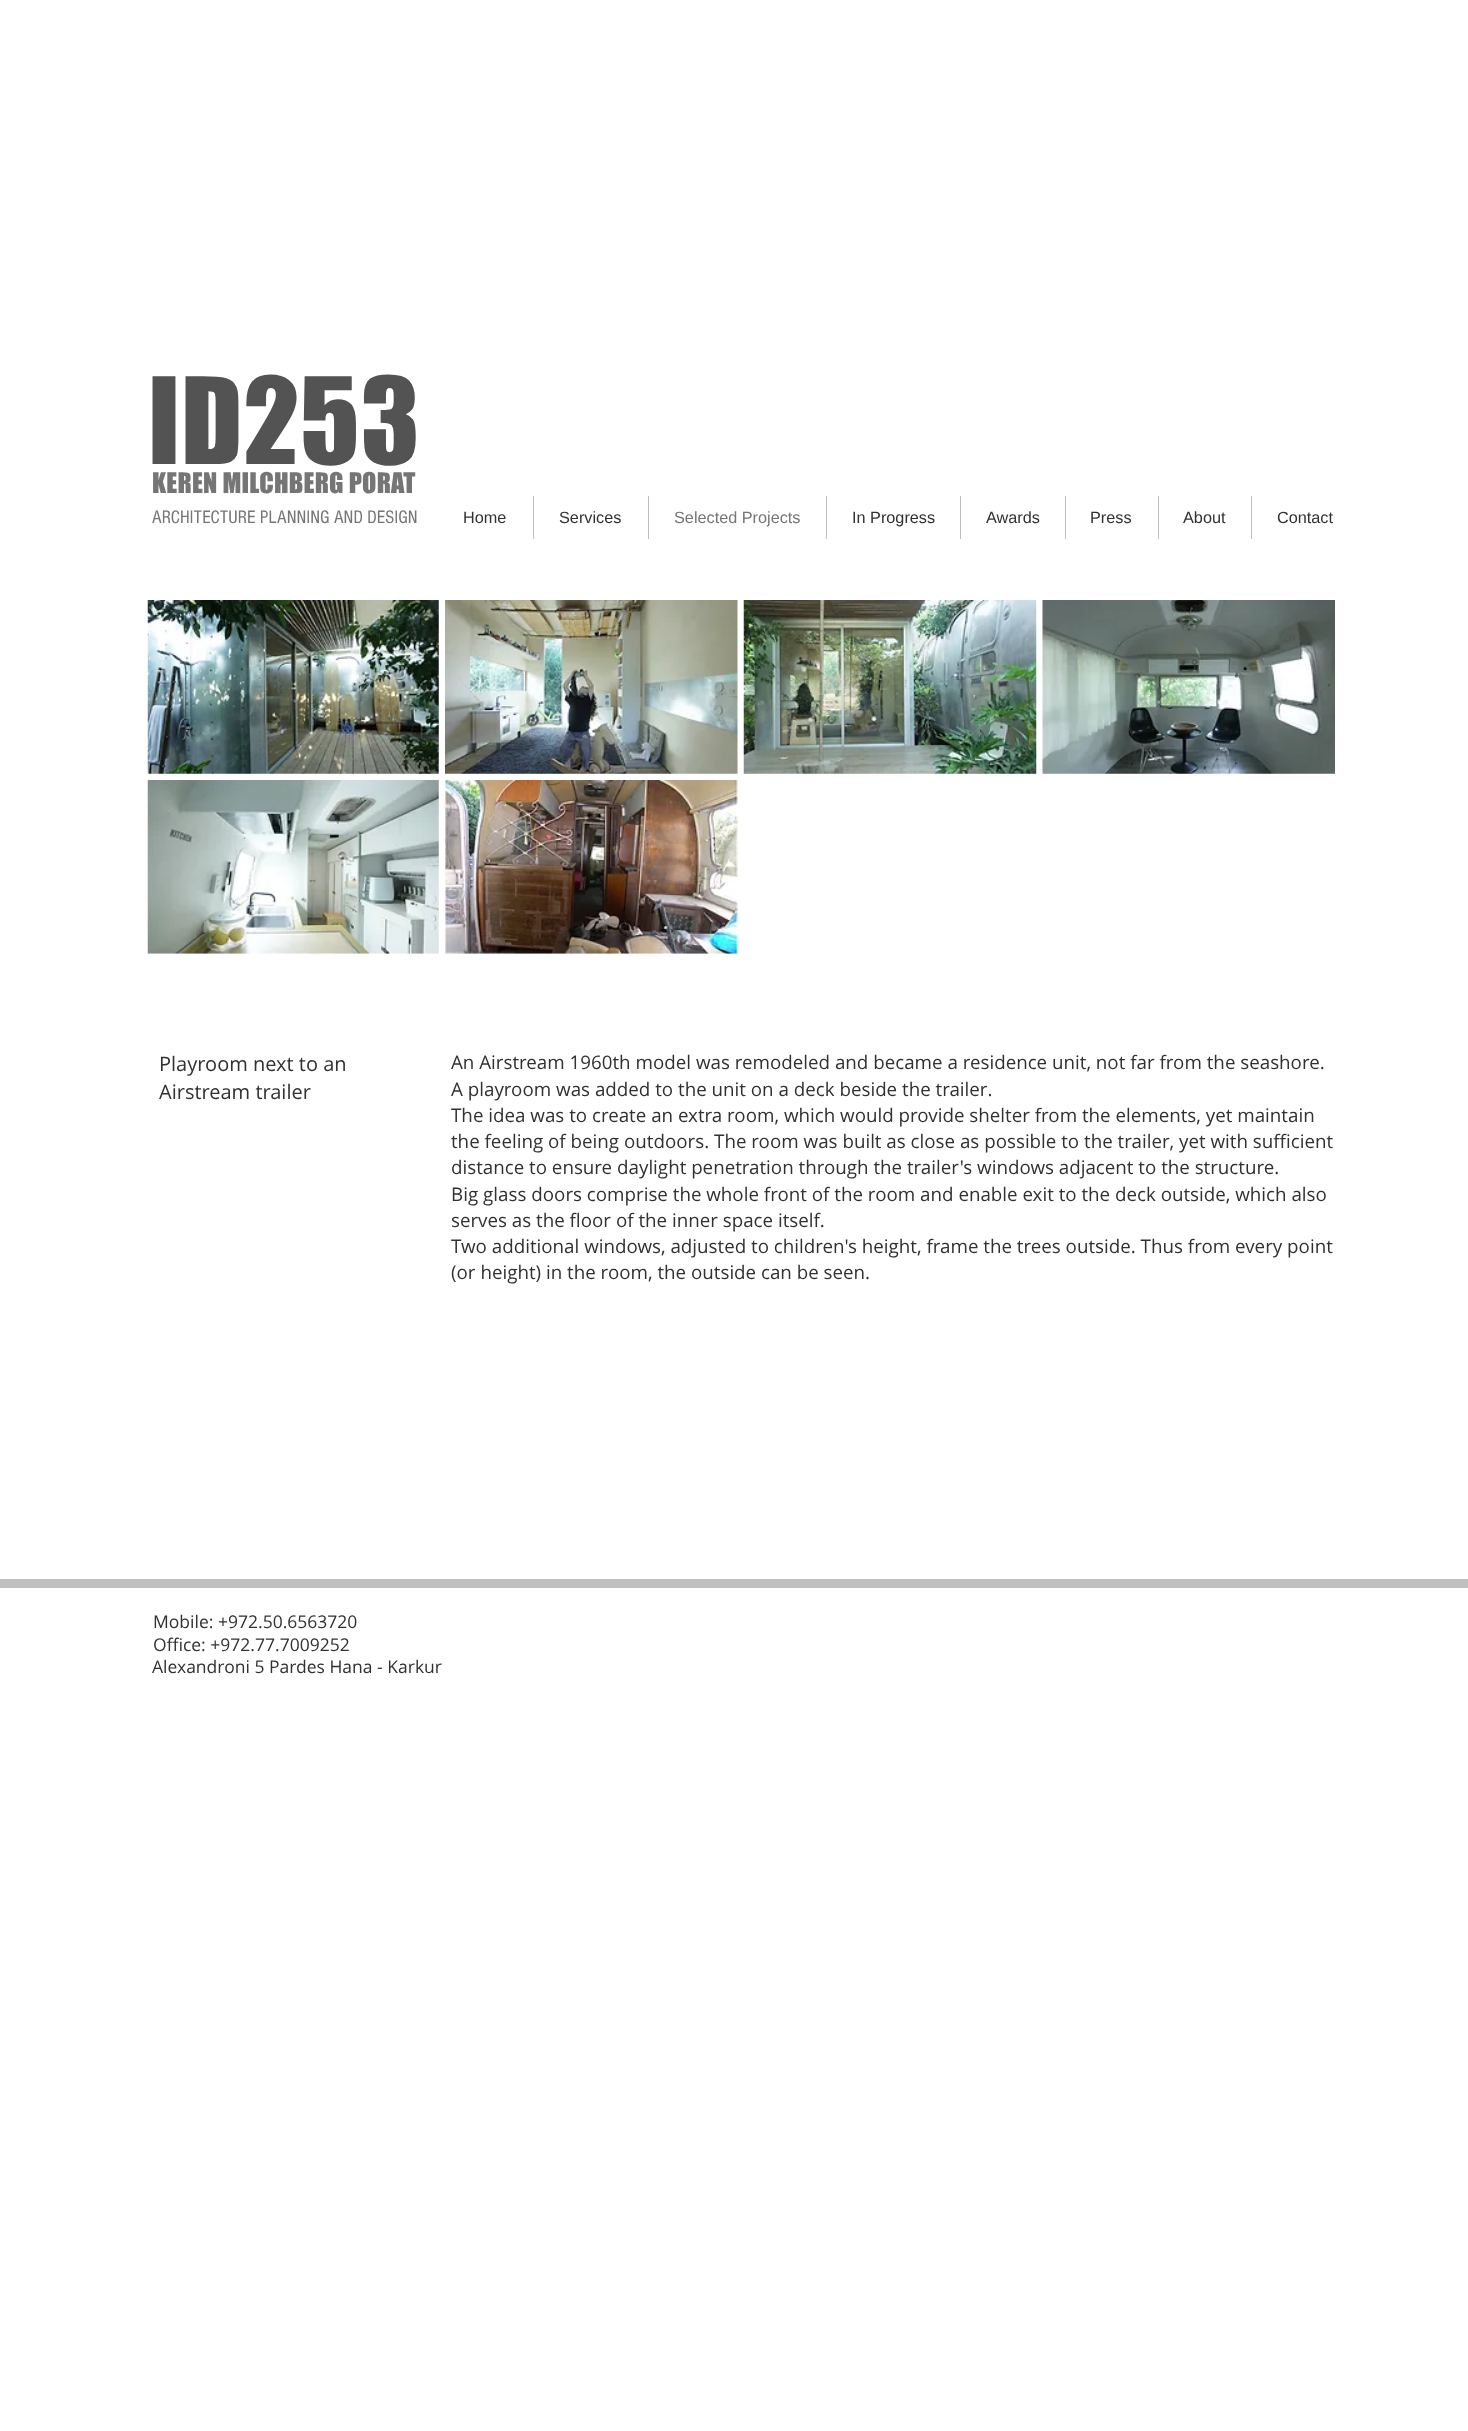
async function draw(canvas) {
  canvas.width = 1468
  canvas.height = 2431
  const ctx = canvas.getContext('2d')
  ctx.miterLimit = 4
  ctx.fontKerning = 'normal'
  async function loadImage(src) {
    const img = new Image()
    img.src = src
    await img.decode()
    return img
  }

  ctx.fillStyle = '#fff'
  ctx.fillRect(0, 0, 1468, 2431)
  ctx.letterSpacing = '1px'
  ctx.font = '111px "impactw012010"'
  ctx.fillStyle = '#535353'
  ctx.fillText('ID253', 148, 464)
  ctx.letterSpacing = '0.25px'
  ctx.font = '26.25px "impactw012010"'
  ctx.fillStyle = '#757575'
  ctx.fillText('KEREN MILCHBERG PORAT', 152, 493)
  ctx.letterSpacing = '0px'
  ctx.font = '18.75px "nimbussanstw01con"'
  ctx.fillText('ARCHITECTURE PLANNING AND DESIGN', 152, 523)
  ctx.font = '16.25px Liberation Sans'
  ctx.fillStyle = '#313131'
  ctx.fillText('Home', 463, 523)
  ctx.fillStyle = '#c0c0c0'
  ctx.fillRect(533, 496, 1, 43)
  ctx.fillStyle = '#313131'
  ctx.fillText('Services', 559, 523)
  ctx.fillStyle = '#c0c0c0'
  ctx.fillRect(648, 496, 1, 43)
  ctx.fillStyle = '#757575'
  ctx.fillText('Selected Projects', 674, 523)
  ctx.fillStyle = '#c0c0c0'
  ctx.fillRect(826, 496, 1, 43)
  ctx.fillStyle = '#313131'
  ctx.fillText('In Progress', 852, 523)
  ctx.fillStyle = '#c0c0c0'
  ctx.fillRect(960, 496, 1, 43)
  ctx.fillStyle = '#313131'
  ctx.fillText('Awards', 986, 523)
  ctx.fillStyle = '#c0c0c0'
  ctx.fillRect(1065, 496, 1, 43)
  ctx.fillStyle = '#313131'
  ctx.fillText('Press', 1090, 523)
  ctx.fillStyle = '#c0c0c0'
  ctx.fillRect(1158, 496, 1, 43)
  ctx.fillStyle = '#313131'
  ctx.fillText('About', 1183, 523)
  ctx.fillStyle = '#c0c0c0'
  ctx.fillRect(1251, 496, 1, 43)
  ctx.fillStyle = '#313131'
  ctx.fillText('Contact', 1277, 523)
  ctx.drawImage(await loadImage('image0.png'), 147, 600, 292, 174)
  ctx.drawImage(await loadImage('image1.png'), 445, 600, 293, 174)
  ctx.drawImage(await loadImage('image2.png'), 743, 600, 294, 174)
  ctx.drawImage(await loadImage('image3.png'), 1042, 600, 293, 174)
  ctx.drawImage(await loadImage('image4.png'), 147, 780, 292, 174)
  ctx.drawImage(await loadImage('image5.png'), 445, 780, 293, 174)
  ctx.font = '20px Open Sans'
  ctx.fillText('Playroom next to an', 159, 1071)
  ctx.fillText('Airstream trailer', 159, 1099)
  ctx.font = '18.75px Open Sans'
  ctx.fillText('An Airstream 1960th model was remodeled and became a residence unit, not far from the seashore.', 451, 1069)
  ctx.fillText('A playroom was added to the unit on a deck beside the trailer.', 451, 1096)
  ctx.fillText('The idea was to create an extra room, which would provide shelter from the elements, yet maintain', 451, 1122)
  ctx.fillText('the feeling of being outdoors. The room was built as close as possible to the trailer, yet with sufficient', 451, 1148)
  ctx.fillText('distance to ensure daylight penetration through the trailer\'s windows adjacent to the structure.', 451, 1174)
  ctx.fillText('Big glass doors comprise the whole front of the room and enable exit to the deck outside, which also', 451, 1201)
  ctx.fillText('serves as the floor of the inner space itself.', 451, 1227)
  ctx.fillText('Two additional windows, adjusted to children\'s height, frame the trees outside. Thus from every point', 451, 1253)
  ctx.fillText('(or height) in the room, the outside can be seen.', 451, 1279)
  ctx.fillStyle = '#c0c0c0'
  ctx.fillRect(0, 1579, 1468, 9)
  ctx.font = '17.5px Open Sans'
  ctx.fillStyle = '#313131'
  ctx.fillText('Mobile: +972.50.6563720', 153, 1628)
  ctx.fillText('Office: +972.77.7009252', 153, 1651)
  ctx.fillText('Alexandroni 5 Pardes Hana - Karkur', 152, 1673)
}

draw(document.querySelector('canvas'))
